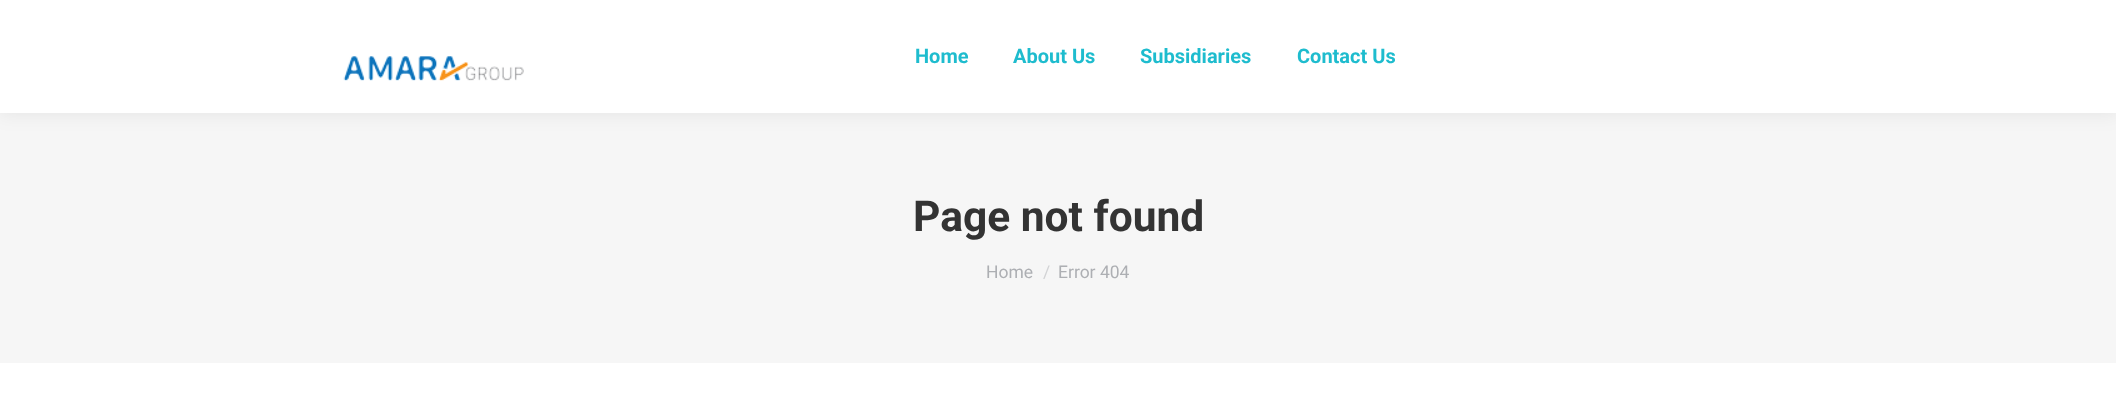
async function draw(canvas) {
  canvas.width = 2116
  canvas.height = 404
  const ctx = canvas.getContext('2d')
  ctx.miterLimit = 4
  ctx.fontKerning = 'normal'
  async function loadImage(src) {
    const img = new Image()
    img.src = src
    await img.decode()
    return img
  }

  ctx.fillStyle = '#fff'
  ctx.fillRect(0, 0, 2116, 404)
  ctx.fillStyle = '#f6f6f6'
  ctx.fillRect(0, 113, 2116, 250)
  ctx.fillStyle = '#00000012'
  ctx.filter = 'blur(9.5px)'
  ctx.beginPath()
  ctx.rect(-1, -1, 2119, 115)
  ctx.fill()
  ctx.filter = 'none'
  ctx.fillStyle = '#fff'
  ctx.fillRect(0, 0, 2116, 113)
  ctx.drawImage(await loadImage('image0.png'), 343, 56, 181, 25)
  ctx.font = 'bold 20px Roboto'
  ctx.fillStyle = '#1ebcce'
  ctx.fillText('Home', 915, 63)
  ctx.fillText('About Us', 1013, 63)
  ctx.fillText('Subsidiaries', 1140, 63)
  ctx.fillText('Contact Us', 1297, 63)
  ctx.font = 'bold 42.5px Roboto'
  ctx.fillStyle = '#333'
  ctx.fillText('Page not found', 913, 231)
  ctx.font = '17.5px Roboto'
  ctx.fillStyle = '#adafb3'
  ctx.fillText('Home', 986, 278)
  ctx.fillStyle = '#d2d3d5'
  ctx.fillText('/', 1043, 278)
  ctx.fillStyle = '#adafb3'
  ctx.fillText('Error 404', 1058, 278)
}

draw(document.querySelector('canvas'))
